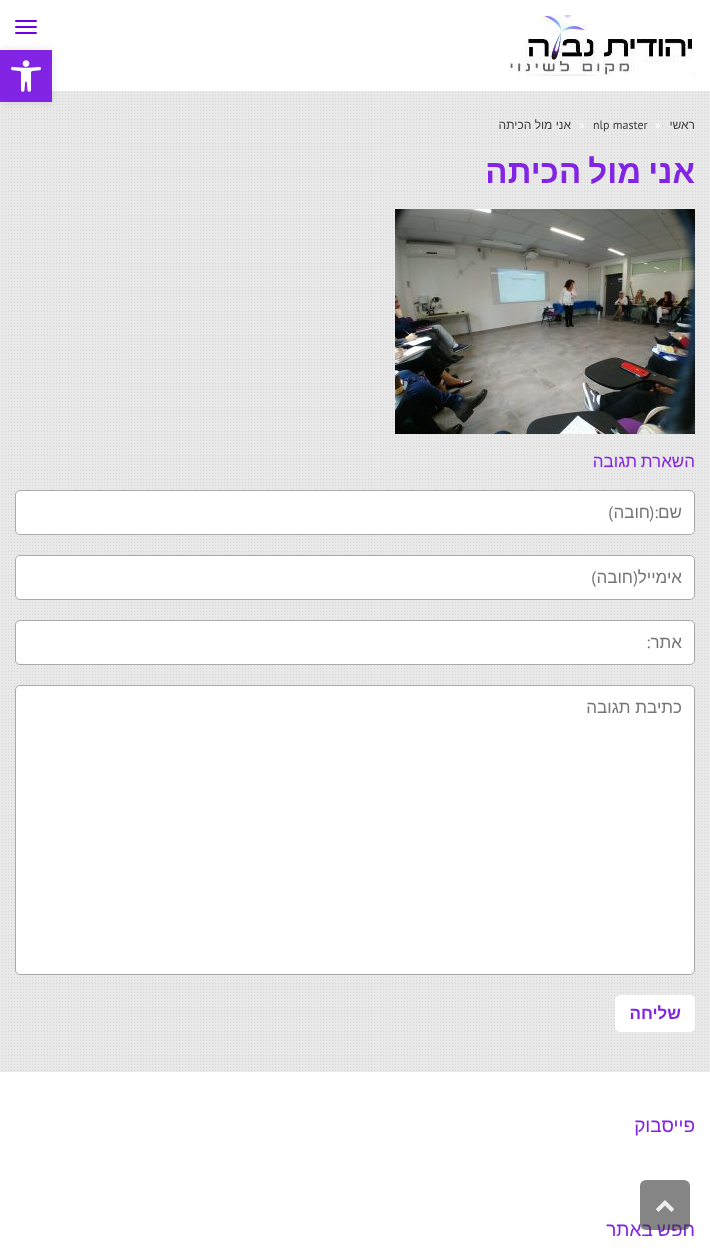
async function draw(canvas) {
  canvas.width = 710
  canvas.height = 1250
  const ctx = canvas.getContext('2d')
  ctx.miterLimit = 4
  ctx.fontKerning = 'normal'
  async function loadImage(src) {
    const img = new Image()
    img.src = src
    await img.decode()
    return img
  }

  ctx.fillStyle = '#fff'
  ctx.fillRect(0, 0, 710, 1250)
  ctx.drawImage(await loadImage('image0.png'), 0, 91, 710, 981)
  ctx.fillStyle = '#0000001a'
  ctx.filter = 'blur(5px)'
  ctx.beginPath()
  ctx.rect(0, 50, 52, 52)
  ctx.fill()
  ctx.filter = 'none'
  ctx.fillStyle = '#8224e3'
  ctx.fillRect(0, 50, 52, 52)
  ctx.drawImage(await loadImage('image1.png'), 11, 60, 30, 32)
  ctx.drawImage(await loadImage('image2.png'), 508, 15, 187, 61)
  ctx.fillStyle = '#7100e2'
  ctx.beginPath()
  ctx.roundRect(15, 20, 22, 2, 1)
  ctx.fill()
  ctx.beginPath()
  ctx.roundRect(15, 26, 22, 2, 1)
  ctx.fill()
  ctx.beginPath()
  ctx.roundRect(15, 32, 22, 2, 1)
  ctx.fill()
  ctx.direction = 'rtl'
  ctx.font = '12px Liberation Sans'
  ctx.fillStyle = '#3d3d3d'
  ctx.fillText('ראשי', 695, 129)
  ctx.direction = 'ltr'
  ctx.font = '12px PT Sans'
  ctx.fillStyle = '#fff'
  ctx.fillText('»', 655, 129)
  ctx.fillStyle = '#3d3d3d'
  ctx.fillText('nlp master', 593, 129)
  ctx.fillStyle = '#fff'
  ctx.fillText('»', 579, 129)
  ctx.direction = 'rtl'
  ctx.font = '12px Liberation Sans'
  ctx.fillStyle = '#3d3d3d'
  ctx.fillText('אני מול הכיתה', 571, 129)
  ctx.wordSpacing = '-2px'
  ctx.font = 'bold 33px Liberation Sans'
  ctx.fillStyle = '#8224e3'
  ctx.fillText('אני מול הכיתה', 695, 183)
  ctx.drawImage(await loadImage('image3.png'), 395, 209, 300, 225)
  ctx.wordSpacing = '-1px'
  ctx.font = '17px Liberation Sans'
  ctx.fillText('השארת תגובה', 695, 467)
  ctx.fillStyle = '#fff'
  ctx.beginPath()
  ctx.roundRect(15.5, 490.5, 679, 44, 4.5)
  ctx.fill()
  ctx.strokeStyle = '#aaa'
  ctx.stroke()
  ctx.wordSpacing = '0px'
  ctx.fillStyle = '#757575'
  ctx.fillText('שם', 682, 518)
  ctx.font = '17px PT Sans'
  ctx.fillText(':(', 658, 518)
  ctx.font = '17px Liberation Sans'
  ctx.fillText('חובה', 650, 518)
  ctx.font = '17px PT Sans'
  ctx.fillText(')', 613, 518)
  ctx.fillStyle = '#fff'
  ctx.beginPath()
  ctx.roundRect(15.5, 555.5, 679, 44, 4.5)
  ctx.fill()
  ctx.stroke()
  ctx.font = '17px Liberation Sans'
  ctx.fillStyle = '#757575'
  ctx.fillText('אימייל', 682, 583)
  ctx.font = '17px PT Sans'
  ctx.fillText('(', 638, 583)
  ctx.font = '17px Liberation Sans'
  ctx.fillText('חובה', 633, 583)
  ctx.font = '17px PT Sans'
  ctx.fillText(')', 596, 583)
  ctx.fillStyle = '#fff'
  ctx.beginPath()
  ctx.roundRect(15.5, 620.5, 679, 44, 4.5)
  ctx.fill()
  ctx.stroke()
  ctx.fillStyle = '#757575'
  ctx.fillText(':', 650, 648)
  ctx.font = '17px Liberation Sans'
  ctx.fillText('אתר', 682, 648)
  ctx.fillStyle = '#fff'
  ctx.beginPath()
  ctx.roundRect(15.5, 685.5, 679, 289, 4.5)
  ctx.fill()
  ctx.stroke()
  ctx.fillStyle = '#757575'
  ctx.fillText('כתיבת תגובה', 682, 713)
  ctx.fillStyle = '#fff'
  ctx.beginPath()
  ctx.roundRect(616, 996, 78, 35, 4)
  ctx.fill()
  ctx.strokeStyle = '#fff'
  ctx.lineWidth = 2
  ctx.stroke()
  ctx.font = 'bold 17px Liberation Sans'
  ctx.fillStyle = '#8224e3'
  ctx.fillText('שליחה', 681, 1019)
  ctx.font = '19px Liberation Sans'
  ctx.fillText('פייסבוק', 695, 1132)
  ctx.wordSpacing = '-1px'
  ctx.fillText('חפש באתר', 695, 1236)
  ctx.fillStyle = '#33333399'
  ctx.beginPath()
  ctx.roundRect(640, 1180, 50, 50, 6)
  ctx.fill()
  ctx.drawImage(await loadImage('image4.png'), 656, 1200, 18, 12)
}

draw(document.querySelector('canvas'))
